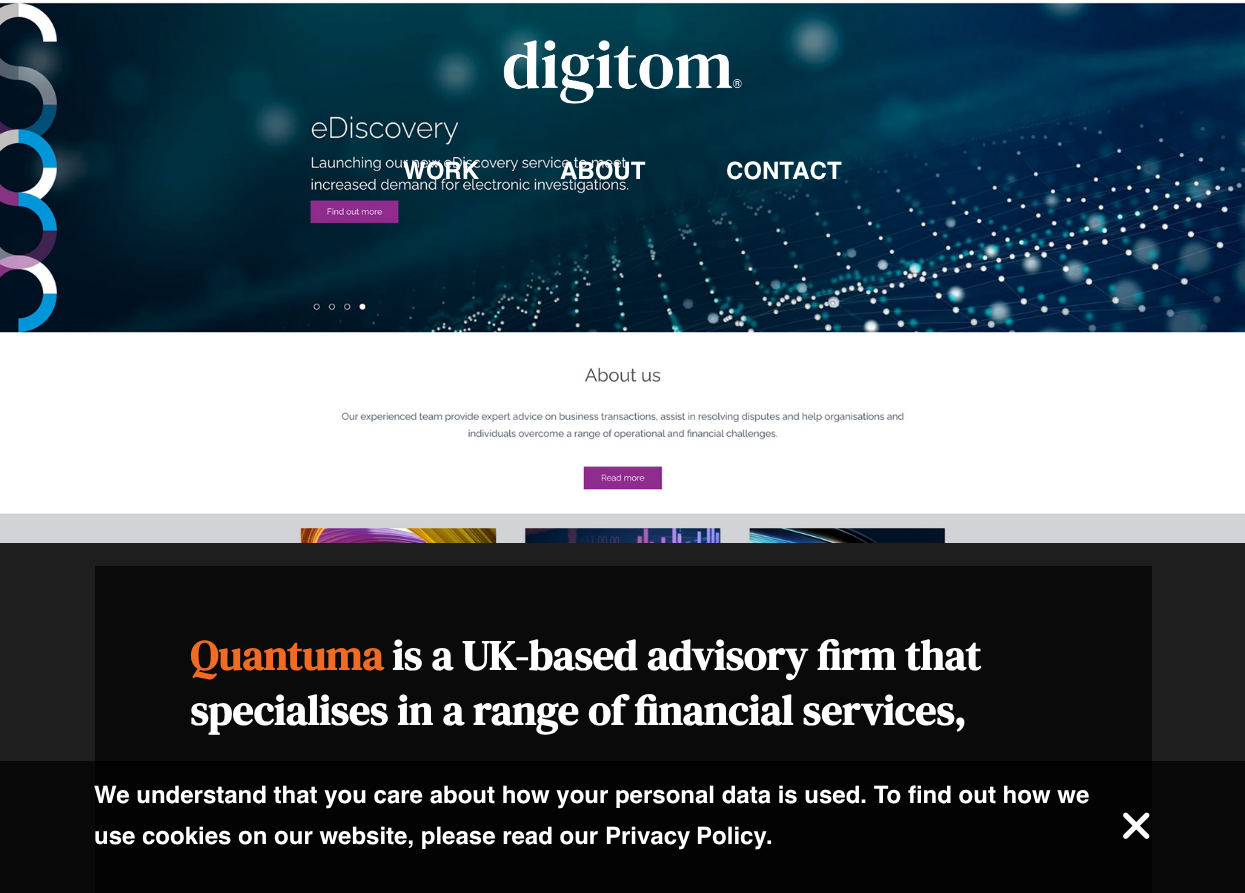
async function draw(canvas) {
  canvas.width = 1245
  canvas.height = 893
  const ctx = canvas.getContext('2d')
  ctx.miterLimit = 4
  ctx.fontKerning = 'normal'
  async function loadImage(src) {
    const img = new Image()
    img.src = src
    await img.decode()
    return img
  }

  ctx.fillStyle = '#1e1e1e'
  ctx.fillRect(0, 0, 1245, 893)
  ctx.drawImage(await loadImage('image1.png'), 0, 0, 1245, 543)
  ctx.drawImage(await loadImage('image0.png'), 503, 40, 239, 64)
  ctx.font = 'bold 24px Helvetica'
  ctx.fillStyle = '#fff'
  ctx.fillText('WORK', 403, 179)
  ctx.fillText('ABOUT', 560, 179)
  ctx.fillText('CONTACT', 726, 179)
  ctx.fillStyle = '#0a0a0a'
  ctx.fillRect(95, 566, 1057, 327)
  ctx.font = 'bold 42px DM Serif Text'
  ctx.fillStyle = '#f16b25'
  ctx.fillText('Quantuma', 190, 670)
  ctx.fillStyle = '#fff'
  ctx.fillText('is a UK-based advisory firm that', 392, 670)
  ctx.fillText('specialises in a range of financial services,', 190, 725)
  ctx.fillStyle = '#000000b3'
  ctx.fillRect(0, 761, 1245, 132)
  ctx.font = 'bold 24px Helvetica'
  ctx.fillStyle = '#fff'
  ctx.fillText('We understand that you care about how your personal data is used. To find out how we', 94, 803)
  ctx.fillText('use cookies on our website, please read our', 94, 844)
  ctx.wordSpacing = '-1px'
  ctx.fillText('Privacy Policy', 605, 844)
  ctx.wordSpacing = '0px'
  ctx.fillText('.', 766, 844)
  ctx.drawImage(await loadImage('image2.png'), 1123, 812, 27, 27)
}

draw(document.querySelector('canvas'))
